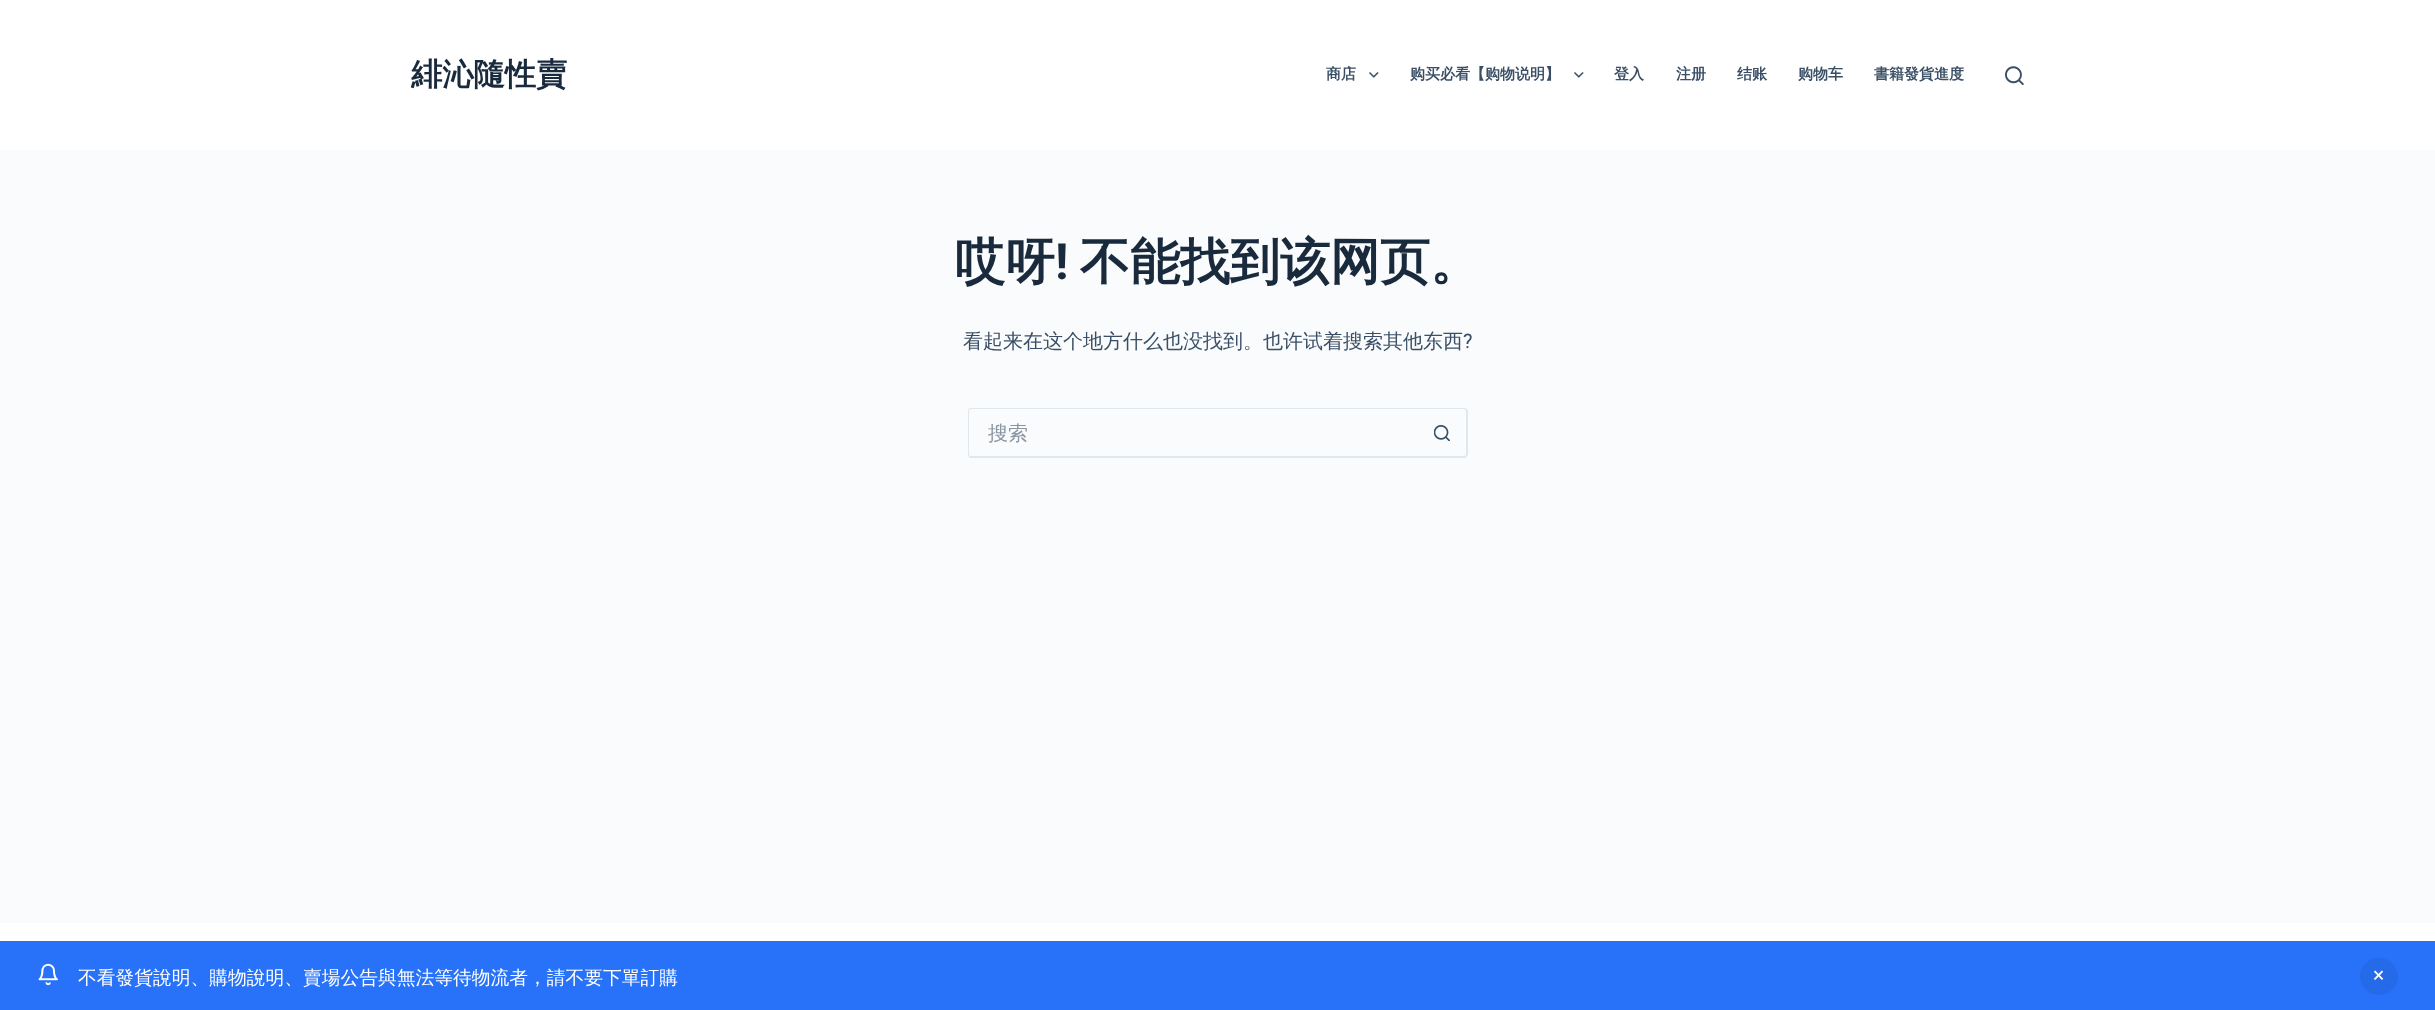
async function draw(canvas) {
  canvas.width = 2435
  canvas.height = 1010
  const ctx = canvas.getContext('2d')
  ctx.miterLimit = 4
  ctx.fontKerning = 'normal'
  async function loadImage(src) {
    const img = new Image()
    img.src = src
    await img.decode()
    return img
  }

  ctx.fillStyle = '#fafbfc'
  ctx.fillRect(0, 0, 2435, 1010)
  ctx.fillStyle = '#fff'
  ctx.fillRect(0, 0, 2435, 150)
  ctx.font = 'bold 31.25px WenQuanYi Zen Hei'
  ctx.fillStyle = '#192a3d'
  ctx.fillText('緋沁隨性賣', 411, 85)
  ctx.font = 'bold 15px WenQuanYi Zen Hei'
  ctx.fillStyle = '#3a4f66'
  ctx.fillText('商店', 1326, 79)
  ctx.drawImage(await loadImage('image0.png'), 1369, 72, 10, 6)
  ctx.fillText('购买必看【购物说明】', 1410, 79)
  ctx.drawImage(await loadImage('image0.png'), 1574, 72, 10, 6)
  ctx.fillText('登入', 1614, 79)
  ctx.fillText('注册', 1676, 79)
  ctx.fillText('结账', 1737, 79)
  ctx.fillText('购物车', 1798, 79)
  ctx.fillText('書籍發貨進度', 1874, 79)
  ctx.drawImage(await loadImage('image1.png'), 2005, 66, 19, 19)
  ctx.font = 'bold 50px WenQuanYi Zen Hei'
  ctx.fillStyle = '#192a3d'
  ctx.fillText('哎呀', 955, 279)
  ctx.font = 'bold 50px Roboto'
  ctx.fillText('!', 1055, 279)
  ctx.font = 'bold 50px WenQuanYi Zen Hei'
  ctx.fillText('不能找到该网页。', 1080, 279)
  ctx.font = '500 20px WenQuanYi Zen Hei'
  ctx.fillStyle = '#3a4f66'
  ctx.fillText('看起来在这个地方什么也没找到。也许试着搜索其他东西', 963, 348)
  ctx.font = '20px Roboto'
  ctx.fillText('?', 1463, 348)
  ctx.fillStyle = '#e1e8ed'
  ctx.beginPath()
  ctx.moveTo(971, 408)
  ctx.lineTo(1418, 408)
  ctx.lineTo(1418, 458)
  ctx.lineTo(971, 458)
  ctx.bezierCurveTo(969, 458, 968, 456, 968, 454)
  ctx.lineTo(968, 411)
  ctx.bezierCurveTo(968, 409, 969, 408, 971, 408)
  ctx.closePath()
  ctx.moveTo(971, 409)
  ctx.lineTo(1418, 409)
  ctx.lineTo(1418, 456)
  ctx.lineTo(971, 456)
  ctx.bezierCurveTo(970, 456, 969, 455, 969, 454)
  ctx.lineTo(969, 411)
  ctx.bezierCurveTo(969, 410, 970, 409, 971, 409)
  ctx.closePath()
  ctx.fill('evenodd')
  ctx.font = '500 20px WenQuanYi Zen Hei'
  ctx.fillStyle = '#8794a2'
  ctx.fillText('搜索', 988, 440)
  ctx.fillStyle = '#e1e8ed'
  ctx.beginPath()
  ctx.moveTo(1418, 408)
  ctx.lineTo(1464, 408)
  ctx.bezierCurveTo(1466, 408, 1468, 409, 1468, 411)
  ctx.lineTo(1468, 454)
  ctx.bezierCurveTo(1468, 456, 1466, 458, 1464, 458)
  ctx.lineTo(1418, 458)
  ctx.closePath()
  ctx.moveTo(1418, 409)
  ctx.lineTo(1464, 409)
  ctx.bezierCurveTo(1465, 409, 1466, 410, 1466, 411)
  ctx.lineTo(1466, 454)
  ctx.bezierCurveTo(1466, 455, 1465, 456, 1464, 456)
  ctx.lineTo(1418, 456)
  ctx.closePath()
  ctx.fill('evenodd')
  ctx.drawImage(await loadImage('image2.png'), 1434, 425, 16, 16)
  ctx.fillStyle = '#fff'
  ctx.fillRect(0, 923, 2435, 18)
  ctx.fillStyle = '#2872fa'
  ctx.fillRect(0, 941, 2435, 69)
  ctx.drawImage(await loadImage('image3.png'), 38, 963, 20, 23)
  ctx.font = '500 18.75px WenQuanYi Zen Hei'
  ctx.fillStyle = '#fff'
  ctx.fillText('不看發貨說明、購物說明、賣場公告與無法等待物流者，請不要下單訂購', 78, 984)
  ctx.fillStyle = '#256ae9'
  ctx.beginPath()
  ctx.roundRect(2360, 958, 38, 37, 18.5)
  ctx.fill()
  ctx.font = '21px Roboto'
  ctx.fillStyle = '#fff'
  ctx.fillText('×', 2373, 982)
}

draw(document.querySelector('canvas'))
